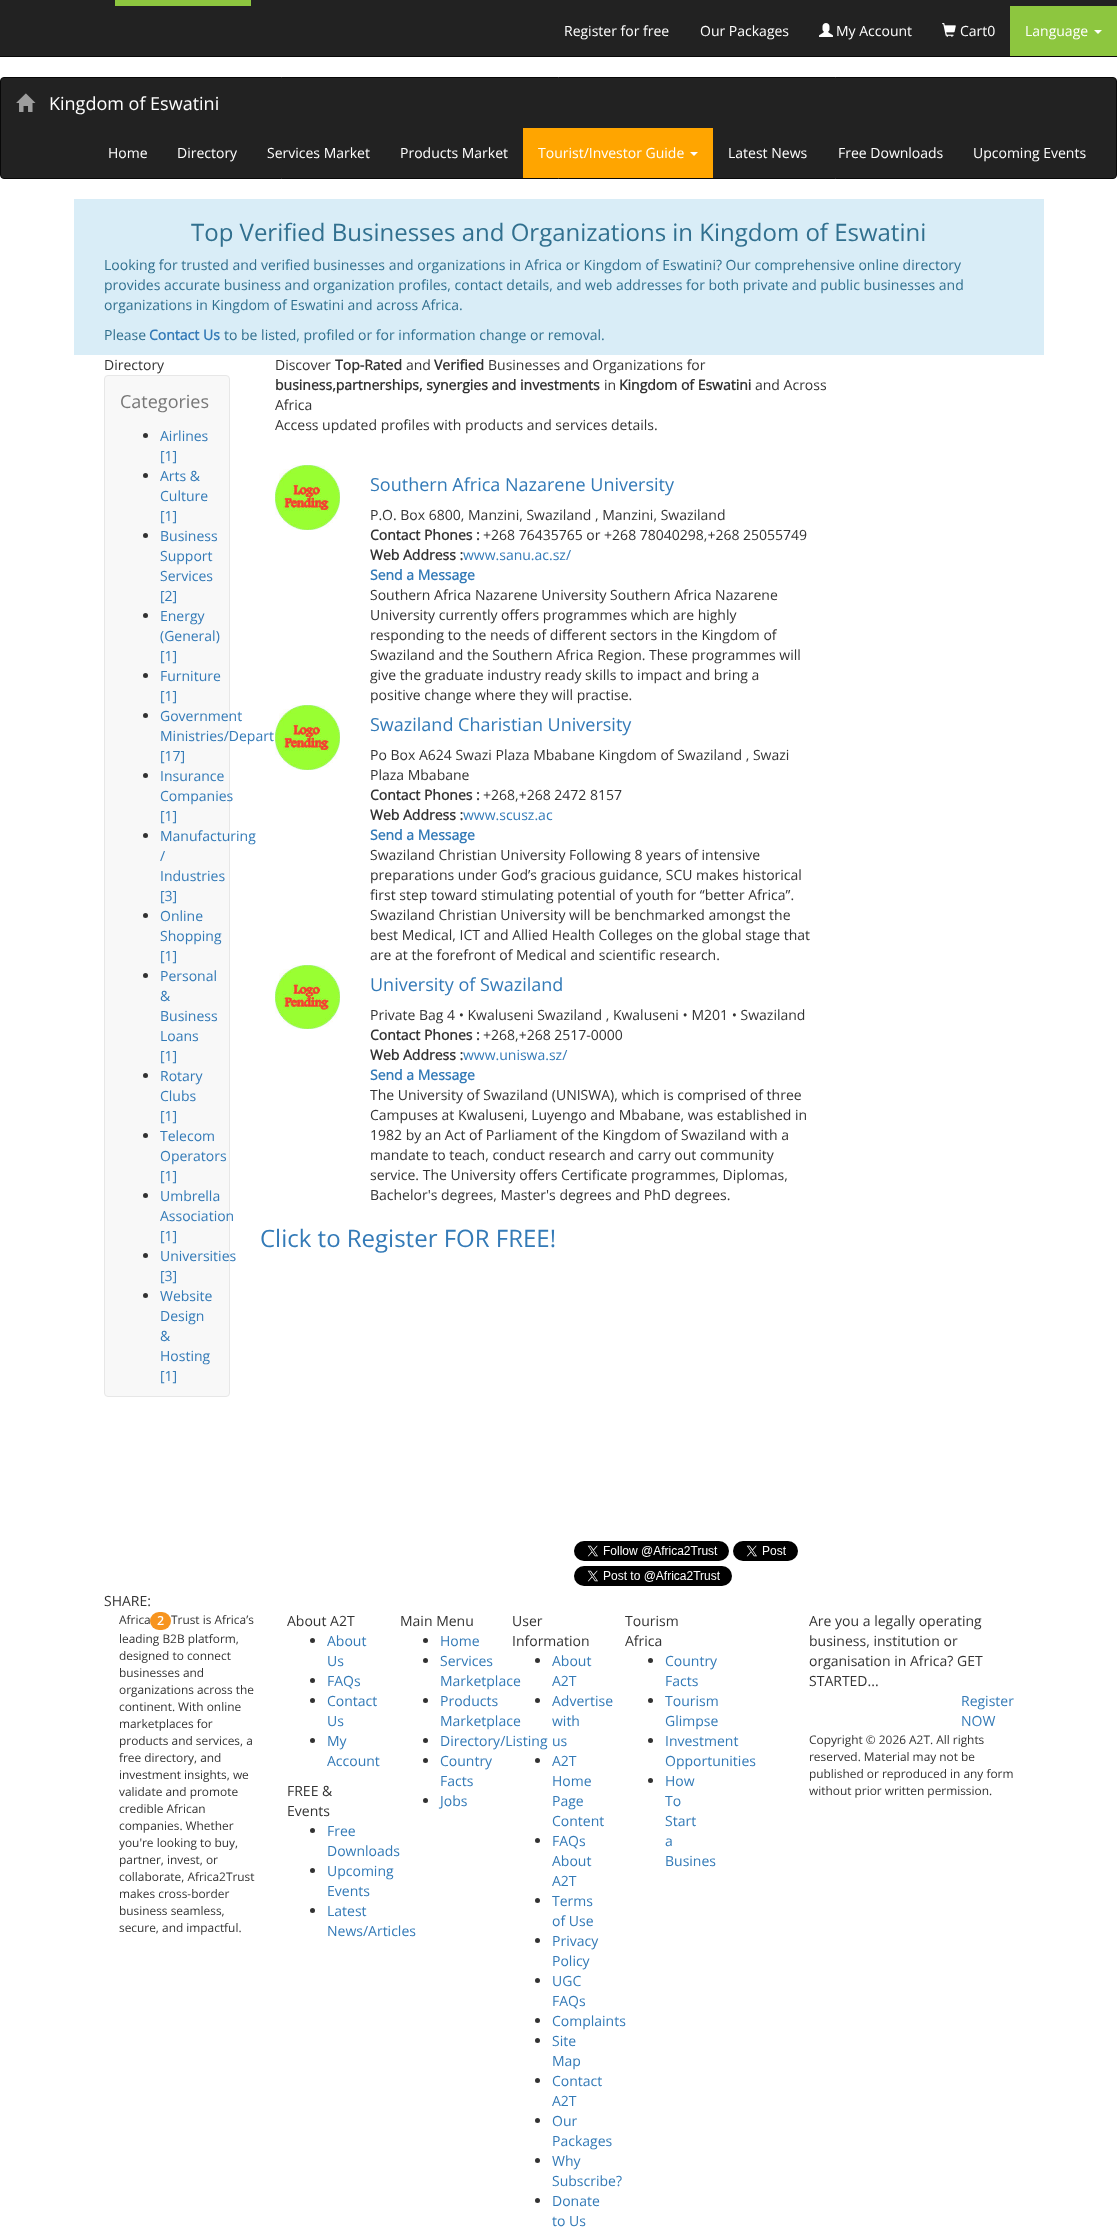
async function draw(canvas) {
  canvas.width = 1117
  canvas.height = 2240
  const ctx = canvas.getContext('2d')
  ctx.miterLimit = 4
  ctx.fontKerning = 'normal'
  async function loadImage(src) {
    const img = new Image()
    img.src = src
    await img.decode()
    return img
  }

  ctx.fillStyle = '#fff'
  ctx.fillRect(0, 0, 1117, 2240)
  ctx.fillStyle = '#222'
  ctx.fillRect(0, 0, 1117, 56)
  ctx.fillStyle = '#080808'
  ctx.fillRect(0, 56, 1117, 1)
  ctx.fillStyle = '#8dc63f'
  ctx.fillRect(115, 0, 136, 6)
  ctx.font = '14px Open Sans'
  ctx.fillStyle = '#fff'
  ctx.fillText('Register for free', 564, 36)
  ctx.fillText('Our Packages', 700, 36)
  ctx.drawImage(await loadImage('image0.png'), 819, 23, 14, 14)
  ctx.fillText('My Account', 836, 36)
  ctx.drawImage(await loadImage('image1.png'), 942, 23, 14, 14)
  ctx.fillText('Cart0', 960, 36)
  ctx.fillStyle = '#8dc63f'
  ctx.fillRect(1010, 6, 107, 50)
  ctx.fillStyle = '#fff'
  ctx.fillText('Language', 1025, 36)
  ctx.beginPath()
  ctx.moveTo(1094, 30)
  ctx.lineTo(1102, 30)
  ctx.lineTo(1098, 34)
  ctx.closePath()
  ctx.fill()
  ctx.fillStyle = '#222'
  ctx.beginPath()
  ctx.roundRect(0.5, 77.5, 1116, 101, 3.5)
  ctx.fill()
  ctx.strokeStyle = '#080808'
  ctx.stroke()
  ctx.drawImage(await loadImage('image2.png'), 16, 93, 20, 19)
  ctx.font = '18px Open Sans'
  ctx.fillStyle = '#fff'
  ctx.fillText('Kingdom of Eswatini', 49, 110)
  ctx.font = '14px Open Sans'
  ctx.fillText('Home', 108, 158)
  ctx.fillText('Directory', 177, 158)
  ctx.fillText('Services Market', 267, 158)
  ctx.fillText('Products Market', 400, 158)
  ctx.fillStyle = '#ffa500'
  ctx.fillRect(523, 128, 190, 50)
  ctx.fillStyle = '#fff'
  ctx.fillText('Tourist/Investor Guide', 538, 158)
  ctx.beginPath()
  ctx.moveTo(690, 152)
  ctx.lineTo(698, 152)
  ctx.lineTo(694, 156)
  ctx.closePath()
  ctx.fill()
  ctx.fillText('Latest News', 728, 158)
  ctx.fillText('Free Downloads', 838, 158)
  ctx.fillText('Upcoming Events', 973, 158)
  ctx.fillStyle = '#d9edf7'
  ctx.fillRect(74, 199, 970, 156)
  ctx.font = '24px Open Sans'
  ctx.fillStyle = '#31708f'
  ctx.fillText('Top Verified Businesses and Organizations in Kingdom of Eswatini', 191, 241)
  ctx.font = '14px Open Sans'
  ctx.fillText('Looking for trusted and verified businesses and organizations in Africa or Kingdom of Eswatini? Our comprehensive online directory', 104, 270)
  ctx.fillText('provides accurate business and organization profiles, contact details, and web addresses for both private and public businesses and', 104, 290)
  ctx.fillText('organizations in Kingdom of Eswatini and across Africa.', 104, 310)
  ctx.fillText('Please', 104, 340)
  ctx.font = 'bold 14px Open Sans'
  ctx.fillStyle = '#337ab7'
  ctx.fillText('Contact Us', 149, 340)
  ctx.font = '14px Open Sans'
  ctx.fillStyle = '#31708f'
  ctx.fillText('to be listed, profiled or for information change or removal.', 224, 340)
  ctx.fillStyle = '#333'
  ctx.fillText('Directory', 104, 370)
  ctx.fillStyle = '#f8f8f8'
  ctx.beginPath()
  ctx.roundRect(104.5, 375.5, 125, 1021, 3.5)
  ctx.fill()
  ctx.strokeStyle = '#e7e7e7'
  ctx.stroke()
  ctx.font = '18px Open Sans'
  ctx.fillStyle = '#777'
  ctx.fillText('Categories', 120, 408)
  ctx.fillStyle = '#333'
  ctx.beginPath()
  ctx.arc(145.5, 435.5, 2.5, 0, 2 * Math.PI)
  ctx.fill()
  ctx.font = '14px Open Sans'
  ctx.fillStyle = '#337ab7'
  ctx.fillText('Airlines', 160, 441)
  ctx.fillText('[1]', 160, 461)
  ctx.fillStyle = '#333'
  ctx.beginPath()
  ctx.arc(145.5, 475.5, 2.5, 0, 2 * Math.PI)
  ctx.fill()
  ctx.fillStyle = '#337ab7'
  ctx.fillText('Arts &', 160, 481)
  ctx.fillText('Culture', 160, 501)
  ctx.fillText('[1]', 160, 521)
  ctx.fillStyle = '#333'
  ctx.beginPath()
  ctx.arc(145.5, 535.5, 2.5, 0, 2 * Math.PI)
  ctx.fill()
  ctx.fillStyle = '#337ab7'
  ctx.fillText('Business', 160, 541)
  ctx.fillText('Support', 160, 561)
  ctx.fillText('Services', 160, 581)
  ctx.fillText('[2]', 160, 601)
  ctx.fillStyle = '#333'
  ctx.beginPath()
  ctx.arc(145.5, 615.5, 2.5, 0, 2 * Math.PI)
  ctx.fill()
  ctx.fillStyle = '#337ab7'
  ctx.fillText('Energy', 160, 621)
  ctx.fillText('(General)', 160, 641)
  ctx.fillText('[1]', 160, 661)
  ctx.fillStyle = '#333'
  ctx.beginPath()
  ctx.arc(145.5, 675.5, 2.5, 0, 2 * Math.PI)
  ctx.fill()
  ctx.fillStyle = '#337ab7'
  ctx.fillText('Furniture', 160, 681)
  ctx.fillText('[1]', 160, 701)
  ctx.fillStyle = '#333'
  ctx.beginPath()
  ctx.arc(145.5, 715.5, 2.5, 0, 2 * Math.PI)
  ctx.fill()
  ctx.fillStyle = '#337ab7'
  ctx.fillText('Government', 160, 721)
  ctx.fillText('Ministries/Depart', 160, 741)
  ctx.fillText('[17]', 160, 761)
  ctx.fillStyle = '#333'
  ctx.beginPath()
  ctx.arc(145.5, 775.5, 2.5, 0, 2 * Math.PI)
  ctx.fill()
  ctx.fillStyle = '#337ab7'
  ctx.fillText('Insurance', 160, 781)
  ctx.fillText('Companies', 160, 801)
  ctx.fillText('[1]', 160, 821)
  ctx.fillStyle = '#333'
  ctx.beginPath()
  ctx.arc(145.5, 835.5, 2.5, 0, 2 * Math.PI)
  ctx.fill()
  ctx.fillStyle = '#337ab7'
  ctx.fillText('Manufacturing', 160, 841)
  ctx.fillText('/', 160, 861)
  ctx.fillText('Industries', 160, 881)
  ctx.fillText('[3]', 160, 901)
  ctx.fillStyle = '#333'
  ctx.beginPath()
  ctx.arc(145.5, 915.5, 2.5, 0, 2 * Math.PI)
  ctx.fill()
  ctx.fillStyle = '#337ab7'
  ctx.fillText('Online', 160, 921)
  ctx.fillText('Shopping', 160, 941)
  ctx.fillText('[1]', 160, 961)
  ctx.fillStyle = '#333'
  ctx.beginPath()
  ctx.arc(145.5, 975.5, 2.5, 0, 2 * Math.PI)
  ctx.fill()
  ctx.fillStyle = '#337ab7'
  ctx.fillText('Personal', 160, 981)
  ctx.fillText('&', 160, 1001)
  ctx.fillText('Business', 160, 1021)
  ctx.fillText('Loans', 160, 1041)
  ctx.fillText('[1]', 160, 1061)
  ctx.fillStyle = '#333'
  ctx.beginPath()
  ctx.arc(145.5, 1075.5, 2.5, 0, 2 * Math.PI)
  ctx.fill()
  ctx.fillStyle = '#337ab7'
  ctx.fillText('Rotary', 160, 1081)
  ctx.fillText('Clubs', 160, 1101)
  ctx.fillText('[1]', 160, 1121)
  ctx.fillStyle = '#333'
  ctx.beginPath()
  ctx.arc(145.5, 1135.5, 2.5, 0, 2 * Math.PI)
  ctx.fill()
  ctx.fillStyle = '#337ab7'
  ctx.fillText('Telecom', 160, 1141)
  ctx.fillText('Operators', 160, 1161)
  ctx.fillText('[1]', 160, 1181)
  ctx.fillStyle = '#333'
  ctx.beginPath()
  ctx.arc(145.5, 1195.5, 2.5, 0, 2 * Math.PI)
  ctx.fill()
  ctx.fillStyle = '#337ab7'
  ctx.fillText('Umbrella', 160, 1201)
  ctx.fillText('Association', 160, 1221)
  ctx.fillText('[1]', 160, 1241)
  ctx.fillStyle = '#333'
  ctx.beginPath()
  ctx.arc(145.5, 1255.5, 2.5, 0, 2 * Math.PI)
  ctx.fill()
  ctx.fillStyle = '#337ab7'
  ctx.fillText('Universities', 160, 1261)
  ctx.fillText('[3]', 160, 1281)
  ctx.fillStyle = '#333'
  ctx.beginPath()
  ctx.arc(145.5, 1295.5, 2.5, 0, 2 * Math.PI)
  ctx.fill()
  ctx.fillStyle = '#337ab7'
  ctx.fillText('Website', 160, 1301)
  ctx.fillText('Design', 160, 1321)
  ctx.fillText('&', 160, 1341)
  ctx.fillText('Hosting', 160, 1361)
  ctx.fillText('[1]', 160, 1381)
  ctx.fillStyle = '#333'
  ctx.fillText('Discover', 275, 370)
  ctx.font = 'bold 14px Open Sans'
  ctx.fillText('Top-Rated', 335, 370)
  ctx.font = '14px Open Sans'
  ctx.fillText('and', 406, 370)
  ctx.font = 'bold 14px Open Sans'
  ctx.fillText('Verified', 434, 370)
  ctx.font = '14px Open Sans'
  ctx.fillText('Businesses and Organizations for', 488, 370)
  ctx.font = 'bold 14px Open Sans'
  ctx.fillText('business,partnerships, synergies and investments', 275, 390)
  ctx.font = '14px Open Sans'
  ctx.fillText('in', 604, 390)
  ctx.font = 'bold 14px Open Sans'
  ctx.fillText('Kingdom of Eswatini', 619, 390)
  ctx.font = '14px Open Sans'
  ctx.fillText('and Across', 755, 390)
  ctx.fillText('Africa', 275, 410)
  ctx.fillText('Access updated profiles with products and services details.', 275, 430)
  ctx.drawImage(await loadImage('image3.png'), 275, 465, 65, 65)
  ctx.font = '18px Open Sans'
  ctx.fillStyle = '#337ab7'
  ctx.fillText('Southern Africa Nazarene University', 370, 491)
  ctx.font = '14px Open Sans'
  ctx.fillStyle = '#333'
  ctx.fillText('P.O. Box 6800, Manzini, Swaziland , Manzini, Swaziland', 370, 520)
  ctx.font = 'bold 14px Open Sans'
  ctx.fillText('Contact Phones :', 370, 540)
  ctx.font = '14px Open Sans'
  ctx.fillText('+268 76435765 or +268 78040298,+268 25055749', 483, 540)
  ctx.font = 'bold 14px Open Sans'
  ctx.fillText('Web Address :', 370, 560)
  ctx.font = '14px Open Sans'
  ctx.fillStyle = '#337ab7'
  ctx.fillText('www.sanu.ac.sz/', 463, 560)
  ctx.font = 'bold 14px Open Sans'
  ctx.fillText('Send a Message', 370, 580)
  ctx.font = '14px Open Sans'
  ctx.fillStyle = '#333'
  ctx.fillText('Southern Africa Nazarene University Southern Africa Nazarene', 370, 600)
  ctx.fillText('University currently offers programmes which are highly', 370, 620)
  ctx.fillText('responding to the needs of different sectors in the Kingdom of', 370, 640)
  ctx.fillText('Swaziland and the Southern Africa Region. These programmes will', 370, 660)
  ctx.fillText('give the graduate industry ready skills to impact and bring a', 370, 680)
  ctx.fillText('positive change where they will practise.', 370, 700)
  ctx.drawImage(await loadImage('image3.png'), 275, 705, 65, 65)
  ctx.font = '18px Open Sans'
  ctx.fillStyle = '#337ab7'
  ctx.fillText('Swaziland Charistian University', 370, 731)
  ctx.font = '14px Open Sans'
  ctx.fillStyle = '#333'
  ctx.fillText('Po Box A624 Swazi Plaza Mbabane Kingdom of Swaziland , Swazi', 370, 760)
  ctx.fillText('Plaza Mbabane', 370, 780)
  ctx.font = 'bold 14px Open Sans'
  ctx.fillText('Contact Phones :', 370, 800)
  ctx.font = '14px Open Sans'
  ctx.fillText('+268,+268 2472 8157', 483, 800)
  ctx.font = 'bold 14px Open Sans'
  ctx.fillText('Web Address :', 370, 820)
  ctx.font = '14px Open Sans'
  ctx.fillStyle = '#337ab7'
  ctx.fillText('www.scusz.ac', 463, 820)
  ctx.font = 'bold 14px Open Sans'
  ctx.fillText('Send a Message', 370, 840)
  ctx.font = '14px Open Sans'
  ctx.fillStyle = '#333'
  ctx.fillText('Swaziland Christian University Following 8 years of intensive', 370, 860)
  ctx.fillText('preparations under God’s gracious guidance, SCU makes historical', 370, 880)
  ctx.fillText('first step toward stimulating potential of youth for “better Africa”.', 370, 900)
  ctx.fillText('Swaziland Christian University will be benchmarked amongst the', 370, 920)
  ctx.fillText('best Medical, ICT and Allied Health Colleges on the global stage that', 370, 940)
  ctx.fillText('are at the forefront of Medical and scientific research.', 370, 960)
  ctx.drawImage(await loadImage('image4.png'), 275, 965, 65, 64)
  ctx.font = '18px Open Sans'
  ctx.fillStyle = '#337ab7'
  ctx.fillText('University of Swaziland', 370, 991)
  ctx.font = '14px Open Sans'
  ctx.fillStyle = '#333'
  ctx.fillText('Private Bag 4 • Kwaluseni Swaziland , Kwaluseni • M201 • Swaziland', 370, 1020)
  ctx.font = 'bold 14px Open Sans'
  ctx.fillText('Contact Phones :', 370, 1040)
  ctx.font = '14px Open Sans'
  ctx.fillText('+268,+268 2517-0000', 483, 1040)
  ctx.font = 'bold 14px Open Sans'
  ctx.fillText('Web Address :', 370, 1060)
  ctx.font = '14px Open Sans'
  ctx.fillStyle = '#337ab7'
  ctx.fillText('www.uniswa.sz/', 463, 1060)
  ctx.font = 'bold 14px Open Sans'
  ctx.fillText('Send a Message', 370, 1080)
  ctx.font = '14px Open Sans'
  ctx.fillStyle = '#333'
  ctx.fillText('The University of Swaziland (UNISWA), which is comprised of three', 370, 1100)
  ctx.fillText('Campuses at Kwaluseni, Luyengo and Mbabane, was established in', 370, 1120)
  ctx.fillText('1982 by an Act of Parliament of the Kingdom of Swaziland with a', 370, 1140)
  ctx.fillText('mandate to teach, conduct research and carry out community', 370, 1160)
  ctx.fillText('service. The University offers Certificate programmes, Diplomas,', 370, 1180)
  ctx.fillText('Bachelor\'s degrees, Master\'s degrees and PhD degrees.', 370, 1200)
  ctx.font = '24px Open Sans'
  ctx.fillStyle = '#337ab7'
  ctx.fillText('Click to Register FOR FREE!', 260, 1247)
  ctx.drawImage(await loadImage('image5.png'), 574, 1541, 155, 20)
  ctx.drawImage(await loadImage('image6.png'), 733, 1541, 65, 20)
  ctx.drawImage(await loadImage('image7.png'), 574, 1566, 158, 20)
  ctx.font = '14px Open Sans'
  ctx.fillStyle = '#333'
  ctx.fillText('SHARE:', 104, 1606)
  ctx.font = '11.9px Open Sans'
  ctx.fillText('Africa', 119, 1624)
  ctx.fillStyle = '#f7941e'
  ctx.beginPath()
  ctx.roundRect(150, 1612, 21, 18, 9)
  ctx.fill()
  ctx.font = 'bold 12px Open Sans'
  ctx.fillStyle = '#fff'
  ctx.fillText('2', 157, 1625)
  ctx.font = '11.9px Open Sans'
  ctx.fillStyle = '#333'
  ctx.fillText('Trust is Africa’s', 171, 1624)
  ctx.fillText('leading B2B platform,', 119, 1643)
  ctx.fillText('designed to connect', 119, 1660)
  ctx.fillText('businesses and', 119, 1677)
  ctx.fillText('organizations across the', 119, 1694)
  ctx.fillText('continent. With online', 119, 1711)
  ctx.fillText('marketplaces for', 119, 1728)
  ctx.fillText('products and services, a', 119, 1745)
  ctx.fillText('free directory, and', 119, 1762)
  ctx.fillText('investment insights, we', 119, 1779)
  ctx.fillText('validate and promote', 119, 1796)
  ctx.fillText('credible African', 119, 1813)
  ctx.fillText('companies. Whether', 119, 1830)
  ctx.fillText('you\'re looking to buy,', 119, 1847)
  ctx.fillText('partner, invest, or', 119, 1864)
  ctx.fillText('collaborate, Africa2Trust', 119, 1881)
  ctx.fillText('makes cross-border', 119, 1898)
  ctx.fillText('business seamless,', 119, 1915)
  ctx.fillText('secure, and impactful.', 119, 1932)
  ctx.font = '14px Open Sans'
  ctx.fillText('About A2T', 287, 1626)
  ctx.beginPath()
  ctx.arc(312.5, 1640.5, 2.5, 0, 2 * Math.PI)
  ctx.fill()
  ctx.fillStyle = '#337ab7'
  ctx.fillText('About', 327, 1646)
  ctx.fillText('Us', 327, 1666)
  ctx.fillStyle = '#333'
  ctx.beginPath()
  ctx.arc(312.5, 1680.5, 2.5, 0, 2 * Math.PI)
  ctx.fill()
  ctx.fillStyle = '#337ab7'
  ctx.fillText('FAQs', 327, 1686)
  ctx.fillStyle = '#333'
  ctx.beginPath()
  ctx.arc(312.5, 1700.5, 2.5, 0, 2 * Math.PI)
  ctx.fill()
  ctx.fillStyle = '#337ab7'
  ctx.fillText('Contact', 327, 1706)
  ctx.fillText('Us', 327, 1726)
  ctx.fillStyle = '#333'
  ctx.beginPath()
  ctx.arc(312.5, 1740.5, 2.5, 0, 2 * Math.PI)
  ctx.fill()
  ctx.fillStyle = '#337ab7'
  ctx.fillText('My', 327, 1746)
  ctx.fillText('Account', 327, 1766)
  ctx.fillStyle = '#333'
  ctx.fillText('FREE &', 287, 1796)
  ctx.fillText('Events', 287, 1816)
  ctx.beginPath()
  ctx.arc(312.5, 1830.5, 2.5, 0, 2 * Math.PI)
  ctx.fill()
  ctx.fillStyle = '#337ab7'
  ctx.fillText('Free', 327, 1836)
  ctx.fillText('Downloads', 327, 1856)
  ctx.fillStyle = '#333'
  ctx.beginPath()
  ctx.arc(312.5, 1870.5, 2.5, 0, 2 * Math.PI)
  ctx.fill()
  ctx.fillStyle = '#337ab7'
  ctx.fillText('Upcoming', 327, 1876)
  ctx.fillText('Events', 327, 1896)
  ctx.fillStyle = '#333'
  ctx.beginPath()
  ctx.arc(312.5, 1910.5, 2.5, 0, 2 * Math.PI)
  ctx.fill()
  ctx.fillStyle = '#337ab7'
  ctx.fillText('Latest', 327, 1916)
  ctx.fillText('News/Articles', 327, 1936)
  ctx.fillStyle = '#333'
  ctx.fillText('Main Menu', 400, 1626)
  ctx.beginPath()
  ctx.arc(425.5, 1640.5, 2.5, 0, 2 * Math.PI)
  ctx.fill()
  ctx.fillStyle = '#337ab7'
  ctx.fillText('Home', 440, 1646)
  ctx.fillStyle = '#333'
  ctx.beginPath()
  ctx.arc(425.5, 1660.5, 2.5, 0, 2 * Math.PI)
  ctx.fill()
  ctx.fillStyle = '#337ab7'
  ctx.fillText('Services', 440, 1666)
  ctx.fillText('Marketplace', 440, 1686)
  ctx.fillStyle = '#333'
  ctx.beginPath()
  ctx.arc(425.5, 1700.5, 2.5, 0, 2 * Math.PI)
  ctx.fill()
  ctx.fillStyle = '#337ab7'
  ctx.fillText('Products', 440, 1706)
  ctx.fillText('Marketplace', 440, 1726)
  ctx.fillStyle = '#333'
  ctx.beginPath()
  ctx.arc(425.5, 1740.5, 2.5, 0, 2 * Math.PI)
  ctx.fill()
  ctx.fillStyle = '#337ab7'
  ctx.fillText('Directory/Listing', 440, 1746)
  ctx.fillStyle = '#333'
  ctx.beginPath()
  ctx.arc(425.5, 1760.5, 2.5, 0, 2 * Math.PI)
  ctx.fill()
  ctx.fillStyle = '#337ab7'
  ctx.fillText('Country', 440, 1766)
  ctx.fillText('Facts', 440, 1786)
  ctx.fillStyle = '#333'
  ctx.beginPath()
  ctx.arc(425.5, 1800.5, 2.5, 0, 2 * Math.PI)
  ctx.fill()
  ctx.fillStyle = '#337ab7'
  ctx.fillText('Jobs', 440, 1806)
  ctx.fillStyle = '#333'
  ctx.fillText('User', 512, 1626)
  ctx.fillText('Information', 512, 1646)
  ctx.beginPath()
  ctx.arc(537.5, 1660.5, 2.5, 0, 2 * Math.PI)
  ctx.fill()
  ctx.fillStyle = '#337ab7'
  ctx.fillText('About', 552, 1666)
  ctx.fillText('A2T', 552, 1686)
  ctx.fillStyle = '#333'
  ctx.beginPath()
  ctx.arc(537.5, 1700.5, 2.5, 0, 2 * Math.PI)
  ctx.fill()
  ctx.fillStyle = '#337ab7'
  ctx.fillText('Advertise', 552, 1706)
  ctx.fillText('with', 552, 1726)
  ctx.fillText('us', 552, 1746)
  ctx.fillStyle = '#333'
  ctx.beginPath()
  ctx.arc(537.5, 1760.5, 2.5, 0, 2 * Math.PI)
  ctx.fill()
  ctx.fillStyle = '#337ab7'
  ctx.fillText('A2T', 552, 1766)
  ctx.fillText('Home', 552, 1786)
  ctx.fillText('Page', 552, 1806)
  ctx.fillText('Content', 552, 1826)
  ctx.fillStyle = '#333'
  ctx.beginPath()
  ctx.arc(537.5, 1840.5, 2.5, 0, 2 * Math.PI)
  ctx.fill()
  ctx.fillStyle = '#337ab7'
  ctx.fillText('FAQs', 552, 1846)
  ctx.fillText('About', 552, 1866)
  ctx.fillText('A2T', 552, 1886)
  ctx.fillStyle = '#333'
  ctx.beginPath()
  ctx.arc(537.5, 1900.5, 2.5, 0, 2 * Math.PI)
  ctx.fill()
  ctx.fillStyle = '#337ab7'
  ctx.fillText('Terms', 552, 1906)
  ctx.fillText('of Use', 552, 1926)
  ctx.fillStyle = '#333'
  ctx.beginPath()
  ctx.arc(537.5, 1940.5, 2.5, 0, 2 * Math.PI)
  ctx.fill()
  ctx.fillStyle = '#337ab7'
  ctx.fillText('Privacy', 552, 1946)
  ctx.fillText('Policy', 552, 1966)
  ctx.fillStyle = '#333'
  ctx.beginPath()
  ctx.arc(537.5, 1980.5, 2.5, 0, 2 * Math.PI)
  ctx.fill()
  ctx.fillStyle = '#337ab7'
  ctx.fillText('UGC', 552, 1986)
  ctx.fillText('FAQs', 552, 2006)
  ctx.fillStyle = '#333'
  ctx.beginPath()
  ctx.arc(537.5, 2020.5, 2.5, 0, 2 * Math.PI)
  ctx.fill()
  ctx.fillStyle = '#337ab7'
  ctx.fillText('Complaints', 552, 2026)
  ctx.fillStyle = '#333'
  ctx.beginPath()
  ctx.arc(537.5, 2040.5, 2.5, 0, 2 * Math.PI)
  ctx.fill()
  ctx.fillStyle = '#337ab7'
  ctx.fillText('Site', 552, 2046)
  ctx.fillText('Map', 552, 2066)
  ctx.fillStyle = '#333'
  ctx.beginPath()
  ctx.arc(537.5, 2080.5, 2.5, 0, 2 * Math.PI)
  ctx.fill()
  ctx.fillStyle = '#337ab7'
  ctx.fillText('Contact', 552, 2086)
  ctx.fillText('A2T', 552, 2106)
  ctx.fillStyle = '#333'
  ctx.beginPath()
  ctx.arc(537.5, 2120.5, 2.5, 0, 2 * Math.PI)
  ctx.fill()
  ctx.fillStyle = '#337ab7'
  ctx.fillText('Our', 552, 2126)
  ctx.fillText('Packages', 552, 2146)
  ctx.fillStyle = '#333'
  ctx.beginPath()
  ctx.arc(537.5, 2160.5, 2.5, 0, 2 * Math.PI)
  ctx.fill()
  ctx.fillStyle = '#337ab7'
  ctx.fillText('Why', 552, 2166)
  ctx.fillText('Subscribe?', 552, 2186)
  ctx.fillStyle = '#333'
  ctx.beginPath()
  ctx.arc(537.5, 2200.5, 2.5, 0, 2 * Math.PI)
  ctx.fill()
  ctx.fillStyle = '#337ab7'
  ctx.fillText('Donate', 552, 2206)
  ctx.fillText('to Us', 552, 2226)
  ctx.fillStyle = '#333'
  ctx.fillText('Tourism', 625, 1626)
  ctx.fillText('Africa', 625, 1646)
  ctx.beginPath()
  ctx.arc(650.5, 1660.5, 2.5, 0, 2 * Math.PI)
  ctx.fill()
  ctx.fillStyle = '#337ab7'
  ctx.fillText('Country', 665, 1666)
  ctx.fillText('Facts', 665, 1686)
  ctx.fillStyle = '#333'
  ctx.beginPath()
  ctx.arc(650.5, 1700.5, 2.5, 0, 2 * Math.PI)
  ctx.fill()
  ctx.fillStyle = '#337ab7'
  ctx.fillText('Tourism', 665, 1706)
  ctx.fillText('Glimpse', 665, 1726)
  ctx.fillStyle = '#333'
  ctx.beginPath()
  ctx.arc(650.5, 1740.5, 2.5, 0, 2 * Math.PI)
  ctx.fill()
  ctx.fillStyle = '#337ab7'
  ctx.fillText('Investment', 665, 1746)
  ctx.fillText('Opportunities', 665, 1766)
  ctx.fillStyle = '#333'
  ctx.beginPath()
  ctx.arc(650.5, 1780.5, 2.5, 0, 2 * Math.PI)
  ctx.fill()
  ctx.fillStyle = '#337ab7'
  ctx.fillText('How', 665, 1786)
  ctx.fillText('To', 665, 1806)
  ctx.fillText('Start', 665, 1826)
  ctx.fillText('a', 665, 1846)
  ctx.fillText('Busines', 665, 1866)
  ctx.fillStyle = '#333'
  ctx.fillText('Are you a legally operating', 809, 1626)
  ctx.fillText('business, institution or', 809, 1646)
  ctx.fillText('organisation in Africa? GET', 809, 1666)
  ctx.fillText('STARTED...', 809, 1686)
  ctx.fillStyle = '#337ab7'
  ctx.fillText('Register', 961, 1706)
  ctx.fillText('NOW', 961, 1726)
  ctx.font = '11.9px Open Sans'
  ctx.fillStyle = '#333'
  ctx.fillText('Copyright © 2026 A2T. All rights', 809, 1744)
  ctx.fillText('reserved. Material may not be', 809, 1761)
  ctx.fillText('published or reproduced in any form', 809, 1778)
  ctx.fillText('without prior written permission.', 809, 1795)
}

draw(document.querySelector('canvas'))
